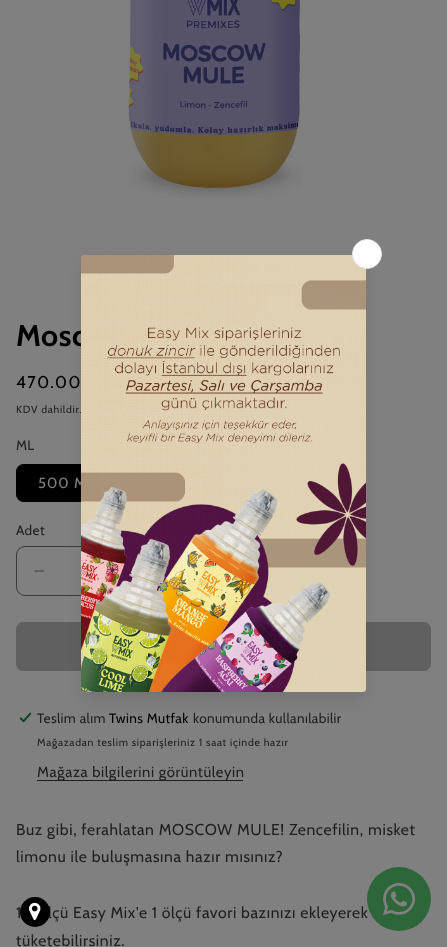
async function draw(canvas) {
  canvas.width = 447
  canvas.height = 947
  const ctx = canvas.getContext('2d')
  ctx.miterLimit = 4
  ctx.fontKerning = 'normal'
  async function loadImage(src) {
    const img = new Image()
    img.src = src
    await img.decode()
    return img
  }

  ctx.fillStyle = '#808080'
  ctx.fillRect(0, 0, 447, 947)
  ctx.fillStyle = '#000'
  ctx.beginPath()
  ctx.roundRect(16, 464, 101, 38, 8)
  ctx.fill()
  ctx.beginPath()
  ctx.roundRect(16.5, 464.5, 100, 37, 7.5)
  ctx.strokeStyle = '#0000008c'
  ctx.stroke()
  ctx.drawImage(await loadImage('image2.png'), 34, 570, 10, 2)
  ctx.beginPath()
  ctx.roundRect(16.5, 546.5, 141, 49, 8.5)
  ctx.strokeStyle = '#3a3a3a'
  ctx.stroke()
  ctx.fillStyle = '#606060'
  ctx.beginPath()
  ctx.roundRect(16.5, 622.5, 414, 48, 6.5)
  ctx.fill()
  ctx.strokeStyle = '#606060'
  ctx.stroke()
  ctx.fillStyle = '#0000001a'
  ctx.filter = 'blur(7.5px)'
  ctx.beginPath()
  ctx.rect(84, 268, 279, 431)
  ctx.fill()
  ctx.filter = 'none'
  ctx.letterSpacing = '0.5px'
  ctx.font = 'bold 30px Cabin'
  ctx.fillStyle = '#000'
  ctx.fillText('Mosc', 16, 346)
  ctx.letterSpacing = '1px'
  ctx.font = '14.75px Cabin'
  ctx.fillStyle = '#808080'
  ctx.fillText('500 M', 38, 488)
  ctx.drawImage(await loadImage('image0.png'), 81, 255, 285, 437)
  ctx.fillStyle = '#fff'
  ctx.beginPath()
  ctx.arc(367, 254, 14.5, 0, 2 * Math.PI)
  ctx.fill()
  ctx.strokeStyle = '#e2e8f0'
  ctx.stroke()
  ctx.drawImage(await loadImage('image1.png'), 128, 0, 174, 199)
  ctx.letterSpacing = '1.5px'
  ctx.font = '17px Cabin'
  ctx.fillStyle = '#000'
  ctx.fillText('470.00', 16, 388)
  ctx.letterSpacing = '0.73px'
  ctx.font = '10.5px Cabin'
  ctx.fillStyle = '#202020'
  ctx.fillText('KDV dahildir.', 16, 413)
  ctx.letterSpacing = '0.4px'
  ctx.font = '13.6px Cabin'
  ctx.fillText('ML', 16, 450)
  ctx.fillText('Adet', 16, 535)
  ctx.drawImage(await loadImage('image3.png'), 19, 712, 13, 11)
  ctx.fillText('Teslim alım', 37, 723)
  ctx.fillStyle = '#000'
  ctx.fillText('Twins Mutfak', 109, 723)
  ctx.fillStyle = '#202020'
  ctx.fillText('konumunda kullanılabilir', 193, 723)
  ctx.letterSpacing = '0.73px'
  ctx.font = '10.5px Cabin'
  ctx.fillText('Mağazadan teslim siparişleriniz 1 saat içinde hazır', 37, 746)
  ctx.fillRect(37, 780, 206, 1)
  ctx.letterSpacing = '0.63px'
  ctx.font = '14.75px Cabin'
  ctx.fillText('Mağaza bilgilerini görüntüleyin', 37, 777)
  ctx.font = '15.75px Cabin'
  ctx.fillText('Buz gibi, ferahlatan MOSCOW MULE! Zencefilin, misket', 16, 835)
  ctx.fillText('limonu ile buluşmasına hazır mısınız?', 16, 862)
  ctx.fillText('1', 16, 918)
  ctx.fillText('lçü Easy Mix\'e 1 ölçü favori bazınızı ekleyerek', 48, 918)
  ctx.fillText('tüketebilirsiniz.', 16, 946)
  ctx.fillStyle = '#000'
  ctx.beginPath()
  ctx.arc(35, 912, 15, 0, 2 * Math.PI)
  ctx.fill()
  ctx.drawImage(await loadImage('image4.png'), 29, 902, 12, 18)
  ctx.fillStyle = '#2d6739'
  ctx.beginPath()
  ctx.arc(399, 899, 32, 0, 2 * Math.PI)
  ctx.fill()
  ctx.drawImage(await loadImage('image5.png'), 383, 883, 32, 32)
}

draw(document.querySelector('canvas'))
